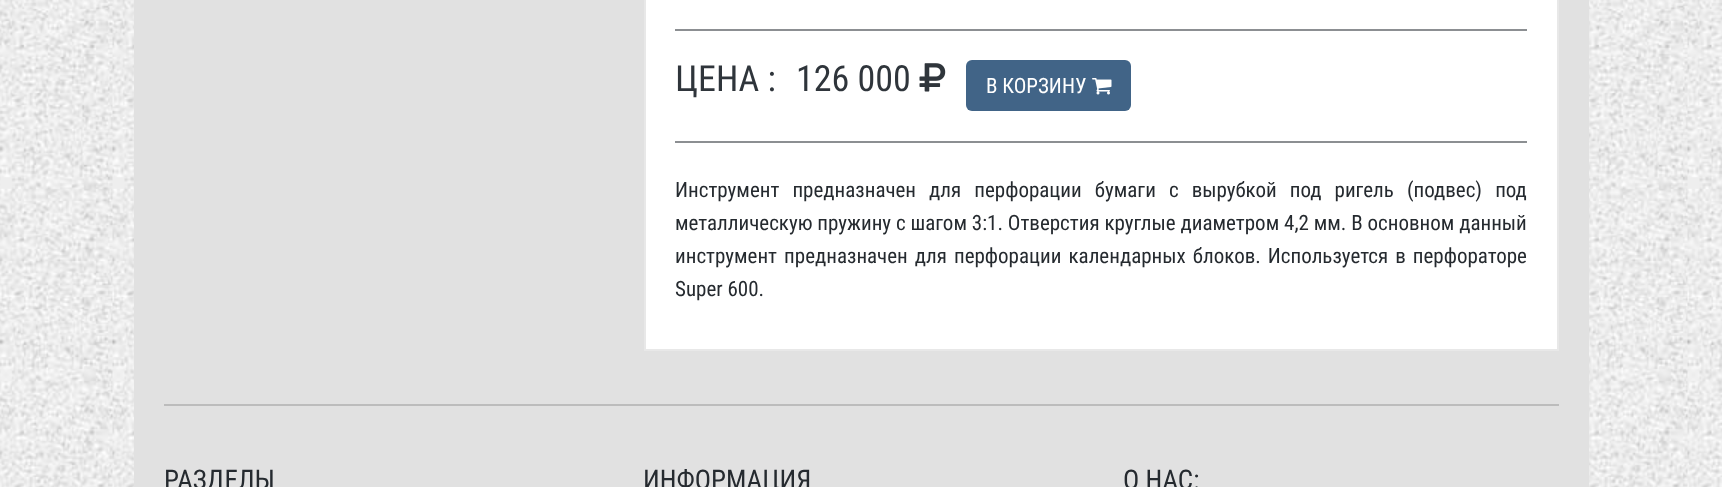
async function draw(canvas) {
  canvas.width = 1722
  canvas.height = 487
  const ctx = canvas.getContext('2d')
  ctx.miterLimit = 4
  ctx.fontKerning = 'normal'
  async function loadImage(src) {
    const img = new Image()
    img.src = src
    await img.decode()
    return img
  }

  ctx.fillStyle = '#fff'
  ctx.fillRect(0, 0, 1722, 487)
  ctx.drawImage(await loadImage('image0.png'), 0, 0, 1722, 487)
  ctx.fillStyle = '#e1e1e1'
  ctx.fillRect(134, 0, 1455, 487)
  ctx.fillStyle = '#fff'
  ctx.beginPath()
  ctx.rect(645, -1, 913, 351)
  ctx.fill()
  ctx.strokeStyle = '#e8e8e8'
  ctx.lineWidth = 2
  ctx.stroke()
  ctx.fillStyle = '#8c8f92'
  ctx.fillRect(675, 29, 852, 2)
  ctx.font = '36px Roboto Condensed'
  ctx.fillStyle = '#2f353b'
  ctx.fillText('ЦЕНА :', 675, 91)
  ctx.fillText('126 000', 796, 91)
  ctx.drawImage(await loadImage('image1.png'), 919, 63, 27, 29)
  ctx.fillStyle = '#416487'
  ctx.beginPath()
  ctx.roundRect(966, 60, 165, 51, 6)
  ctx.fill()
  ctx.font = '21px Roboto Condensed'
  ctx.fillStyle = '#fff'
  ctx.fillText('В КОРЗИНУ', 986, 93)
  ctx.drawImage(await loadImage('image2.png'), 1092, 78, 20, 17)
  ctx.fillStyle = '#8c8f92'
  ctx.fillRect(675, 141, 852, 2)
  ctx.wordSpacing = '8.25px'
  ctx.fillStyle = '#252a2f'
  ctx.fillText('Инструмент предназначен для перфорации бумаги с вырубкой под ригель (подвес) под', 675, 197)
  ctx.wordSpacing = '0px'
  ctx.fillText('металлическую пружину с шагом 3:1. Отверстия круглые диаметром 4,2 мм. В основном данный', 675, 230)
  ctx.wordSpacing = '2.25px'
  ctx.fillText('инструмент предназначен для перфорации календарных блоков. Используется в перфораторе', 675, 263)
  ctx.wordSpacing = '0px'
  ctx.fillText('Super 600.', 675, 296)
  ctx.fillStyle = '#bcbcbc'
  ctx.fillRect(164, 404, 1395, 2)
  ctx.font = '27px Roboto Condensed'
  ctx.fillStyle = '#252a2f'
  ctx.fillText('РАЗДЕЛЫ', 164, 489)
  ctx.fillText('ИНФОРМАЦИЯ', 643, 489)
  ctx.fillText('О НАС:', 1123, 489)
}

draw(document.querySelector('canvas'))
